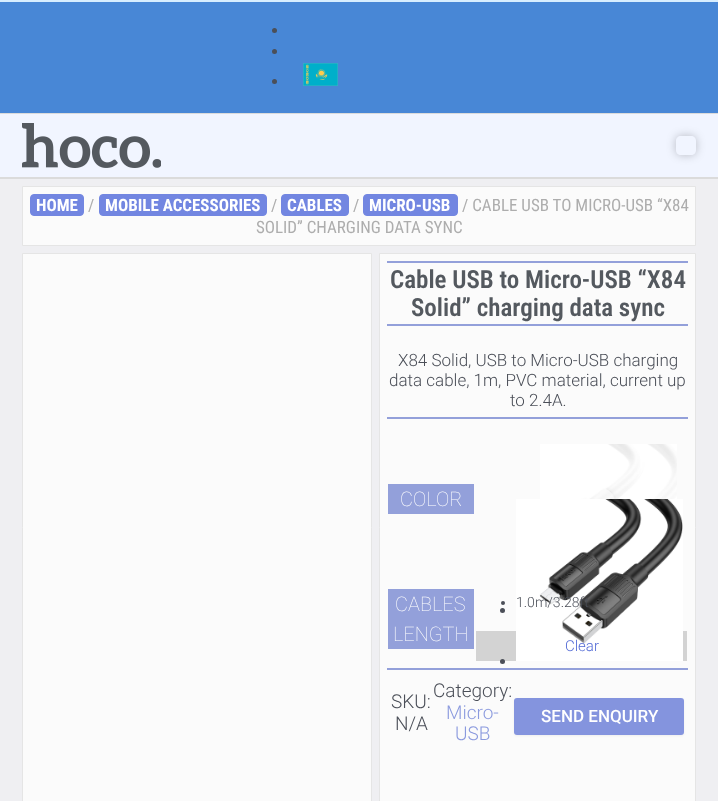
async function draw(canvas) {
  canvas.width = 718
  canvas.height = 801
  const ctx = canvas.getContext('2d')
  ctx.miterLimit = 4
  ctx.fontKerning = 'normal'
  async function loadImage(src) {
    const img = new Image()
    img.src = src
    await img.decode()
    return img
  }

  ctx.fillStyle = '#efeff2'
  ctx.fillRect(0, 0, 718, 801)
  ctx.fillStyle = '#4887d6'
  ctx.fillRect(0, 2, 718, 111)
  ctx.fillStyle = '#d7eeff'
  ctx.fillRect(0, 0, 718, 2)
  ctx.fillStyle = '#4b4f58'
  ctx.beginPath()
  ctx.arc(274.5, 30.5, 2.5, 0, 2 * Math.PI)
  ctx.fill()
  ctx.beginPath()
  ctx.arc(274.5, 51.5, 2.5, 0, 2 * Math.PI)
  ctx.fill()
  ctx.beginPath()
  ctx.arc(274.5, 81.5, 2.5, 0, 2 * Math.PI)
  ctx.fill()
  ctx.drawImage(await loadImage('image0.png'), 303, 63, 35, 23)
  ctx.fillStyle = '#f1f5ff'
  ctx.fillRect(0, 114, 718, 63)
  ctx.fillStyle = '#dbdbdb'
  ctx.fillRect(0, 113, 718, 1)
  ctx.fillRect(0, 177, 718, 2)
  ctx.drawImage(await loadImage('image1.png'), 22, 123, 139, 45)
  ctx.save()
  ctx.beginPath()
  ctx.moveTo(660, 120)
  ctx.lineTo(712, 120)
  ctx.lineTo(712, 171)
  ctx.lineTo(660, 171)
  ctx.closePath()
  ctx.moveTo(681, 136)
  ctx.lineTo(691, 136)
  ctx.bezierCurveTo(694, 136, 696, 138, 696, 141)
  ctx.lineTo(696, 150)
  ctx.bezierCurveTo(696, 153, 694, 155, 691, 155)
  ctx.lineTo(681, 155)
  ctx.bezierCurveTo(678, 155, 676, 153, 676, 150)
  ctx.lineTo(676, 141)
  ctx.bezierCurveTo(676, 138, 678, 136, 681, 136)
  ctx.closePath()
  ctx.clip('evenodd')
  ctx.fillStyle = '#0000003d'
  ctx.filter = 'blur(5px)'
  ctx.beginPath()
  ctx.roundRect(676, 136, 20, 19, 5)
  ctx.fill()
  ctx.filter = 'none'
  ctx.restore()
  ctx.fillStyle = '#fbfbfb'
  ctx.beginPath()
  ctx.rect(22.5, 186.5, 673, 59)
  ctx.fill()
  ctx.strokeStyle = '#e5e5e5'
  ctx.stroke()
  ctx.fillStyle = '#7286e1'
  ctx.beginPath()
  ctx.roundRect(30.5, 194.5, 53, 21, 3.5)
  ctx.fill()
  ctx.strokeStyle = '#7286e1'
  ctx.stroke()
  ctx.font = 'bold 17px Roboto Condensed'
  ctx.fillStyle = '#fff'
  ctx.fillText('HOME', 36, 211)
  ctx.font = '17px Roboto Condensed'
  ctx.fillStyle = '#adadad'
  ctx.fillText('/', 88, 211)
  ctx.fillStyle = '#7286e1'
  ctx.beginPath()
  ctx.roundRect(99.5, 194.5, 167, 21, 3.5)
  ctx.fill()
  ctx.stroke()
  ctx.font = 'bold 17px Roboto Condensed'
  ctx.fillStyle = '#fff'
  ctx.fillText('MOBILE ACCESSORIES', 105, 211)
  ctx.font = '17px Roboto Condensed'
  ctx.fillStyle = '#adadad'
  ctx.fillText('/', 271, 211)
  ctx.fillStyle = '#7286e1'
  ctx.beginPath()
  ctx.roundRect(281.5, 194.5, 67, 21, 3.5)
  ctx.fill()
  ctx.stroke()
  ctx.font = 'bold 17px Roboto Condensed'
  ctx.fillStyle = '#fff'
  ctx.fillText('СABLES', 287, 211)
  ctx.font = '17px Roboto Condensed'
  ctx.fillStyle = '#adadad'
  ctx.fillText('/', 353, 211)
  ctx.fillStyle = '#7286e1'
  ctx.beginPath()
  ctx.roundRect(363.5, 194.5, 94, 21, 3.5)
  ctx.fill()
  ctx.stroke()
  ctx.font = 'bold 17px Roboto Condensed'
  ctx.fillStyle = '#fff'
  ctx.fillText('MICRO-USB', 369, 211)
  ctx.font = '17px Roboto Condensed'
  ctx.fillStyle = '#adadad'
  ctx.fillText('/ CABLE USB TO MICRO-USB “X84', 462, 211)
  ctx.fillText('SOLID” CHARGING DATA SYNC', 256, 233)
  ctx.fillStyle = '#fbfbfb'
  ctx.beginPath()
  ctx.rect(22.5, 253.5, 349, 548)
  ctx.fill()
  ctx.strokeStyle = '#e5e5e5'
  ctx.stroke()
  ctx.beginPath()
  ctx.rect(379.5, 253.5, 316, 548)
  ctx.fill()
  ctx.stroke()
  ctx.fillStyle = '#93a0da'
  ctx.fillRect(387, 261, 301, 2)
  ctx.fillRect(387, 324, 301, 2)
  ctx.font = '600 25px Roboto Condensed'
  ctx.fillStyle = '#54595f'
  ctx.fillText('Cable USB to Micro-USB “X84', 390, 288)
  ctx.fillText('Solid” charging data sync', 411, 316)
  ctx.font = '300 17px Roboto'
  ctx.fillStyle = '#4b4f58'
  ctx.fillText('X84 Solid, USB to Micro-USB charging', 398, 366)
  ctx.fillText('data cable, 1m, PVC material, current up', 389, 386)
  ctx.fillText('to 2.4A.', 510, 406)
  ctx.fillStyle = '#93a0da'
  ctx.fillRect(387, 417, 301, 2)
  ctx.fillRect(388, 484, 86, 30)
  ctx.font = '100 20px Roboto'
  ctx.fillStyle = '#fff'
  ctx.fillText('СOLOR', 400, 506)
  ctx.drawImage(await loadImage('image2.png'), 540, 444, 137, 55)
  ctx.fillStyle = '#4b4f58'
  ctx.beginPath()
  ctx.arc(502.5, 610.5, 2.5, 0, 2 * Math.PI)
  ctx.fill()
  ctx.fillStyle = '#d3d3d3'
  ctx.fillRect(476, 631, 211, 30)
  ctx.drawImage(await loadImage('image3.png'), 516, 499, 167, 162)
  ctx.fillStyle = '#4b4f58'
  ctx.beginPath()
  ctx.arc(502.5, 661.5, 2.5, 0, 2 * Math.PI)
  ctx.fill()
  ctx.fillStyle = '#93a0da'
  ctx.fillRect(388, 589, 86, 60)
  ctx.fillStyle = '#fff'
  ctx.fillText('CABLES', 395, 611)
  ctx.fillText('LENGTH', 393, 641)
  ctx.fillStyle = '#4b4f58'
  ctx.beginPath()
  ctx.arc(503, 603, 2, 0, 2 * Math.PI)
  ctx.fill()
  ctx.font = '300 14px Roboto'
  ctx.fillText('1.0m/3.28ft', 516, 607)
  ctx.font = '300 15px Roboto'
  ctx.fillStyle = '#526ad5'
  ctx.fillText('Clear', 565, 651)
  ctx.fillStyle = '#93a0da'
  ctx.fillRect(387, 668, 301, 2)
  ctx.font = '300 19px Roboto'
  ctx.fillStyle = '#4b4f58'
  ctx.fillText('SKU:', 391, 708)
  ctx.fillText('N/A', 395, 730)
  ctx.fillText('Category:', 433, 697)
  ctx.fillStyle = '#8b9ade'
  ctx.fillText('Micro-', 446, 719)
  ctx.fillText('USB', 455, 740)
  ctx.fillStyle = '#0000000d'
  ctx.filter = 'blur(1px)'
  ctx.beginPath()
  ctx.roundRect(514, 699, 170, 37, 3)
  ctx.fill()
  ctx.filter = 'none'
  ctx.fillStyle = '#8494de'
  ctx.beginPath()
  ctx.roundRect(514, 698, 170, 37, 3)
  ctx.fill()
  ctx.font = '500 17px Roboto'
  ctx.fillStyle = '#fff'
  ctx.fillText('SEND ENQUIRY', 541, 722)
}

draw(document.querySelector('canvas'))
